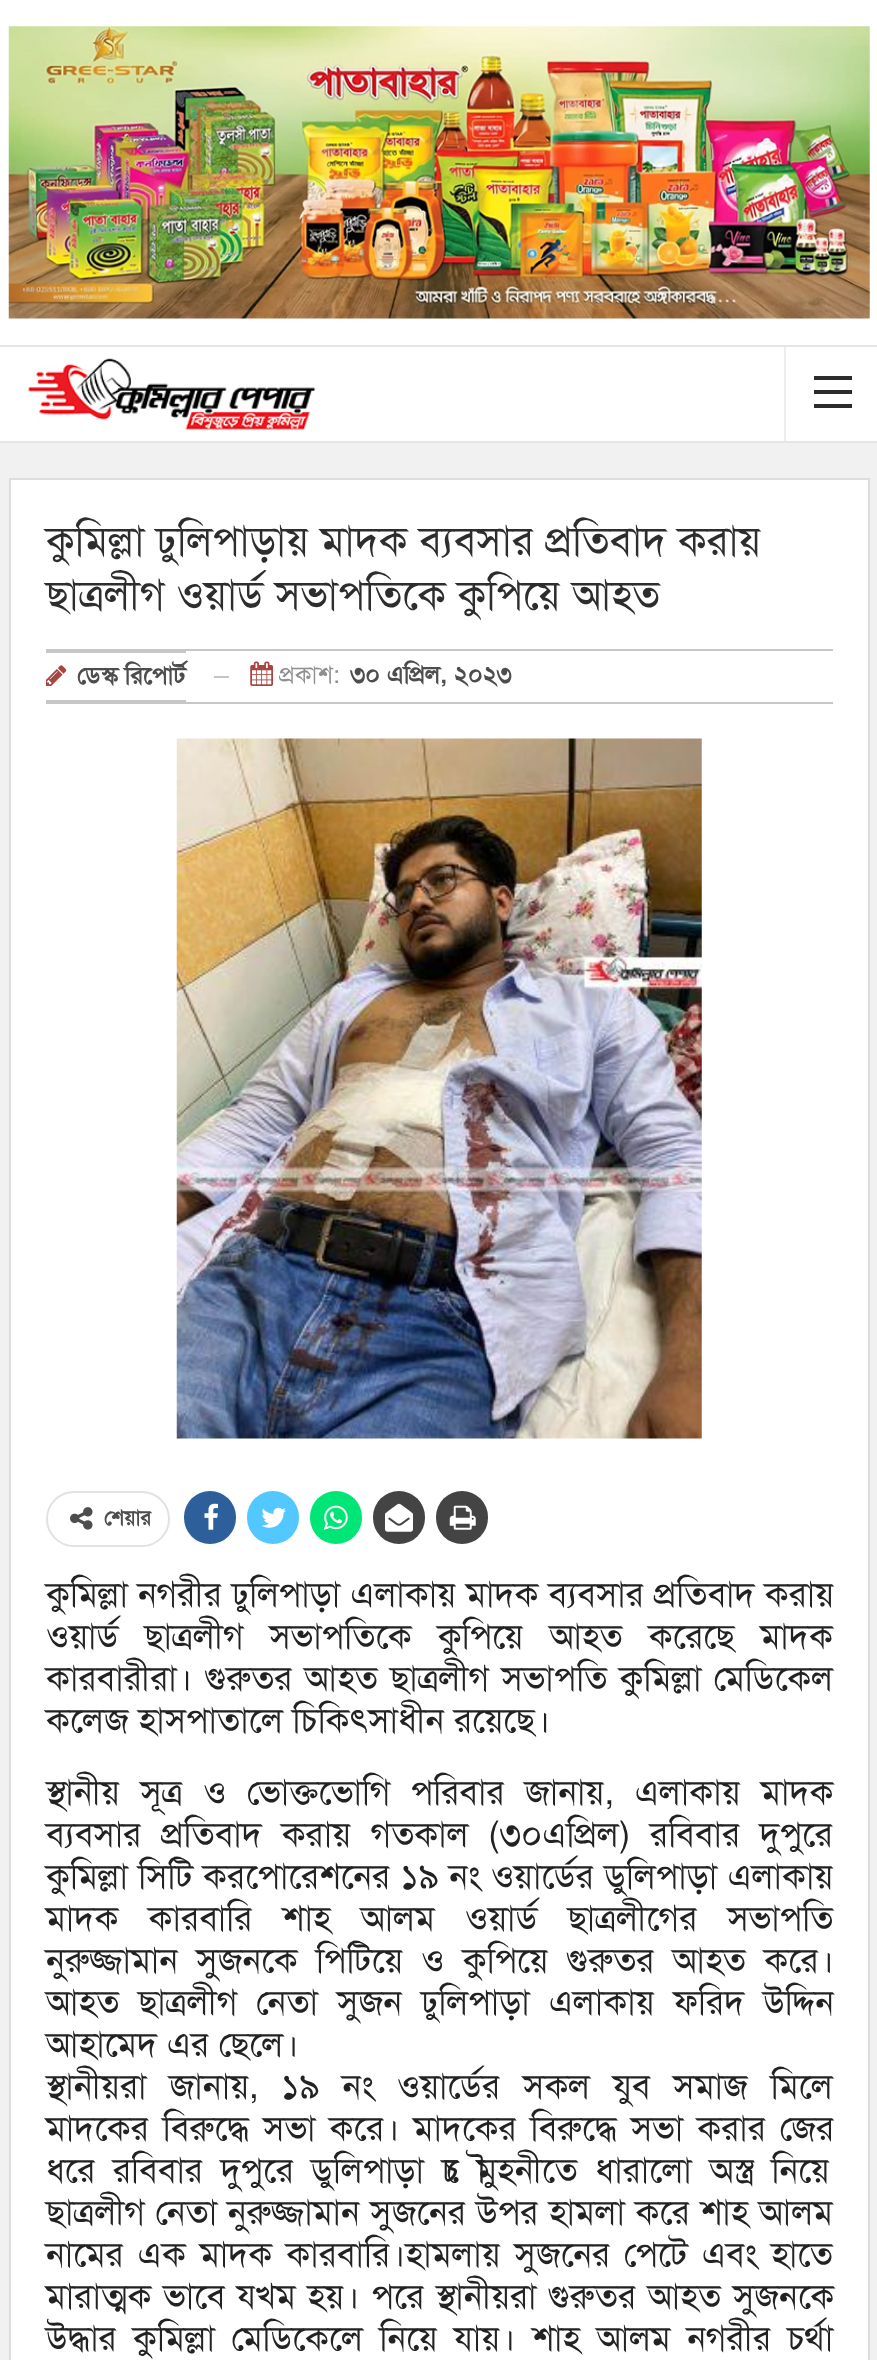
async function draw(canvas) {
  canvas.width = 877
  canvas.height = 2360
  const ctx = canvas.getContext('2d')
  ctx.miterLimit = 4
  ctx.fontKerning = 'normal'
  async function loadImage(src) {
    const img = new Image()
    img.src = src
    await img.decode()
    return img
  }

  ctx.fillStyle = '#f1f1f1'
  ctx.fillRect(0, 0, 877, 2360)
  ctx.fillStyle = '#fff'
  ctx.fillRect(0, 0, 877, 345)
  ctx.drawImage(await loadImage('image0.png'), 8, 26, 862, 293)
  ctx.fillRect(0, 347, 877, 94)
  ctx.fillStyle = '#e5e5e5'
  ctx.fillRect(0, 345, 877, 2)
  ctx.fillRect(0, 441, 877, 2)
  ctx.drawImage(await loadImage('image1.png'), 28, 358, 288, 73)
  ctx.fillStyle = '#ededed'
  ctx.fillRect(784, 347, 2, 94)
  ctx.fillStyle = '#2c2c2c'
  ctx.fillRect(814, 390, 38, 4)
  ctx.fillRect(814, 376, 38, 4)
  ctx.fillRect(814, 404, 38, 4)
  ctx.fillStyle = '#fff'
  ctx.beginPath()
  ctx.rect(10, 479, 859, 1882)
  ctx.fill()
  ctx.strokeStyle = '#ddd'
  ctx.lineWidth = 2
  ctx.stroke()
  ctx.font = '42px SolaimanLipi'
  ctx.fillStyle = '#2d2d2d'
  ctx.fillText('কুমিল্লা ঢুলিপাড়ায় মাদক ব্যবসার প্রতিবাদ করায়', 46, 555)
  ctx.fillText('ছাত্রলীগ ওয়ার্ড সভাপতিকে কুপিয়ে আহত', 46, 609)
  ctx.fillStyle = '#c7c7c7'
  ctx.fillRect(46, 649, 787, 2)
  ctx.fillRect(46, 702, 787, 2)
  ctx.fillRect(46, 651, 140, 2)
  ctx.fillRect(46, 700, 140, 2)
  ctx.drawImage(await loadImage('image2.png'), 46, 665, 21, 21)
  ctx.font = 'bold 24.5px SolaimanLipi'
  ctx.fillStyle = '#4d4d4d'
  ctx.fillText('ডেস্ক রিপোর্ট', 77, 684)
  ctx.fillStyle = '#c4c4c4'
  ctx.fillRect(214, 676, 15, 2)
  ctx.drawImage(await loadImage('image3.png'), 250, 661, 23, 25)
  ctx.font = '24.5px SolaimanLipi'
  ctx.fillStyle = '#8f8f8f'
  ctx.fillText('প্রকাশ:', 279, 683)
  ctx.font = 'bold 24.5px SolaimanLipi'
  ctx.fillStyle = '#4d4d4d'
  ctx.fillText('৩০ এপ্রিল, ২০২৩', 350, 683)
  ctx.drawImage(await loadImage('image4.png'), 176, 738, 526, 701)
  ctx.beginPath()
  ctx.roundRect(47, 1492, 122, 54, 27)
  ctx.strokeStyle = '#e2e2e2'
  ctx.stroke()
  ctx.drawImage(await loadImage('image5.png'), 70, 1507, 23, 23)
  ctx.font = 'bold 21px SolaimanLipi'
  ctx.fillText('শেয়ার', 104, 1525)
  ctx.fillStyle = '#2d5f9a'
  ctx.beginPath()
  ctx.roundRect(184, 1491, 52, 53, 26)
  ctx.fill()
  ctx.drawImage(await loadImage('image6.png'), 204, 1503, 14, 27)
  ctx.fillStyle = '#53c7ff'
  ctx.beginPath()
  ctx.roundRect(247, 1491, 52, 53, 26)
  ctx.fill()
  ctx.drawImage(await loadImage('image7.png'), 261, 1507, 25, 21)
  ctx.fillStyle = '#00e676'
  ctx.beginPath()
  ctx.roundRect(310, 1491, 52, 53, 26)
  ctx.fill()
  ctx.drawImage(await loadImage('image8.png'), 323, 1505, 25, 25)
  ctx.fillStyle = '#444'
  ctx.beginPath()
  ctx.roundRect(373, 1491, 52, 53, 26)
  ctx.fill()
  ctx.drawImage(await loadImage('image9.png'), 385, 1503, 28, 29)
  ctx.beginPath()
  ctx.roundRect(436, 1491, 52, 53, 26)
  ctx.fill()
  ctx.drawImage(await loadImage('image10.png'), 449, 1505, 27, 25)
  ctx.wordSpacing = '0.25px'
  ctx.font = '35px SolaimanLipi'
  ctx.fillStyle = '#222'
  ctx.fillText('কুমিল্লা নগরীর ঢুলিপাড়া এলাকায় মাদক ব্যবসার প্রতিবাদ করায়', 46, 1606)
  ctx.wordSpacing = '16.25px'
  ctx.fillText('ওয়ার্ড ছাত্রলীগ সভাপতিকে কুপিয়ে আহত করেছে মাদক', 46, 1648)
  ctx.wordSpacing = '2.5px'
  ctx.fillText('কারবারীরা। গুরুতর আহত ছাত্রলীগ সভাপতি কুমিল্লা মেডিকেল', 46, 1690)
  ctx.wordSpacing = '0px'
  ctx.fillText('কলেজ হাসপাতালে চিকিৎসাধীন রয়েছে।', 46, 1732)
  ctx.wordSpacing = '10.75px'
  ctx.fillText('স্থানীয় সূত্র ও ভোক্তভোগি পরিবার জানায়, এলাকায় মাদক', 46, 1804)
  ctx.wordSpacing = '10px'
  ctx.fillText('ব্যবসার প্রতিবাদ করায় গতকাল (৩০এপ্রিল) রবিবার দুপুরে', 46, 1846)
  ctx.wordSpacing = '0.5px'
  ctx.fillText('কুমিল্লা সিটি করপোরেশনের ১৯ নং ওয়ার্ডের ডুলিপাড়া এলাকায়', 46, 1888)
  ctx.wordSpacing = '20.5px'
  ctx.fillText('মাদক কারবারি শাহ আলম ওয়ার্ড ছাত্রলীগের সভাপতি', 46, 1930)
  ctx.wordSpacing = '8.5px'
  ctx.fillText('নুরুজ্জামান সুজনকে পিটিয়ে ও কুপিয়ে গুরুতর আহত করে।', 46, 1972)
  ctx.wordSpacing = '9.25px'
  ctx.fillText('আহত ছাত্রলীগ নেতা সুজন ঢুলিপাড়া এলাকায় ফরিদ উদ্দিন', 46, 2014)
  ctx.wordSpacing = '0px'
  ctx.fillText('আহামেদ এর ছেলে।', 46, 2056)
  ctx.wordSpacing = '13.25px'
  ctx.fillText('স্থানীয়রা জানায়,', 46, 2098)
  ctx.fillText('১৯ নং ওয়ার্ডের সকল যুব সমাজ মিলে', 281, 2098)
  ctx.wordSpacing = '4.25px'
  ctx.fillText('মাদকের বিরুদ্ধে সভা করে। মাদকের বিরুদ্ধে সভা করার জের', 46, 2140)
  ctx.wordSpacing = '8px'
  ctx.fillText('ধরে রবিবার দুপুরে', 46, 2182)
  ctx.fillText('ডুলিপাড়া চৌমুহনীতে ধারালো অস্ত্র নিয়ে', 311, 2182)
  ctx.wordSpacing = '0.75px'
  ctx.fillText('ছাত্রলীগ নেতা নুরুজ্জামান সুজনের উপর হামলা করে শাহ আলম', 46, 2224)
  ctx.wordSpacing = '4.25px'
  ctx.fillText('নামের এক মাদক কারবারি।হামলায় সুজনের পেটে এবং হাতে', 46, 2266)
  ctx.wordSpacing = '2px'
  ctx.fillText('মারাত্মক ভাবে যখম হয়। পরে স্থানীয়রা গুরুতর আহত সুজনকে', 46, 2308)
  ctx.wordSpacing = '0px'
  ctx.fillText('উদ্ধার', 46, 2350)
  ctx.wordSpacing = '6.75px'
  ctx.fillText('কুমিল্লা মেডিকেলে নিয়ে যায়। শাহ আলম নগরীর চর্থা', 133, 2350)
}

draw(document.querySelector('canvas'))
